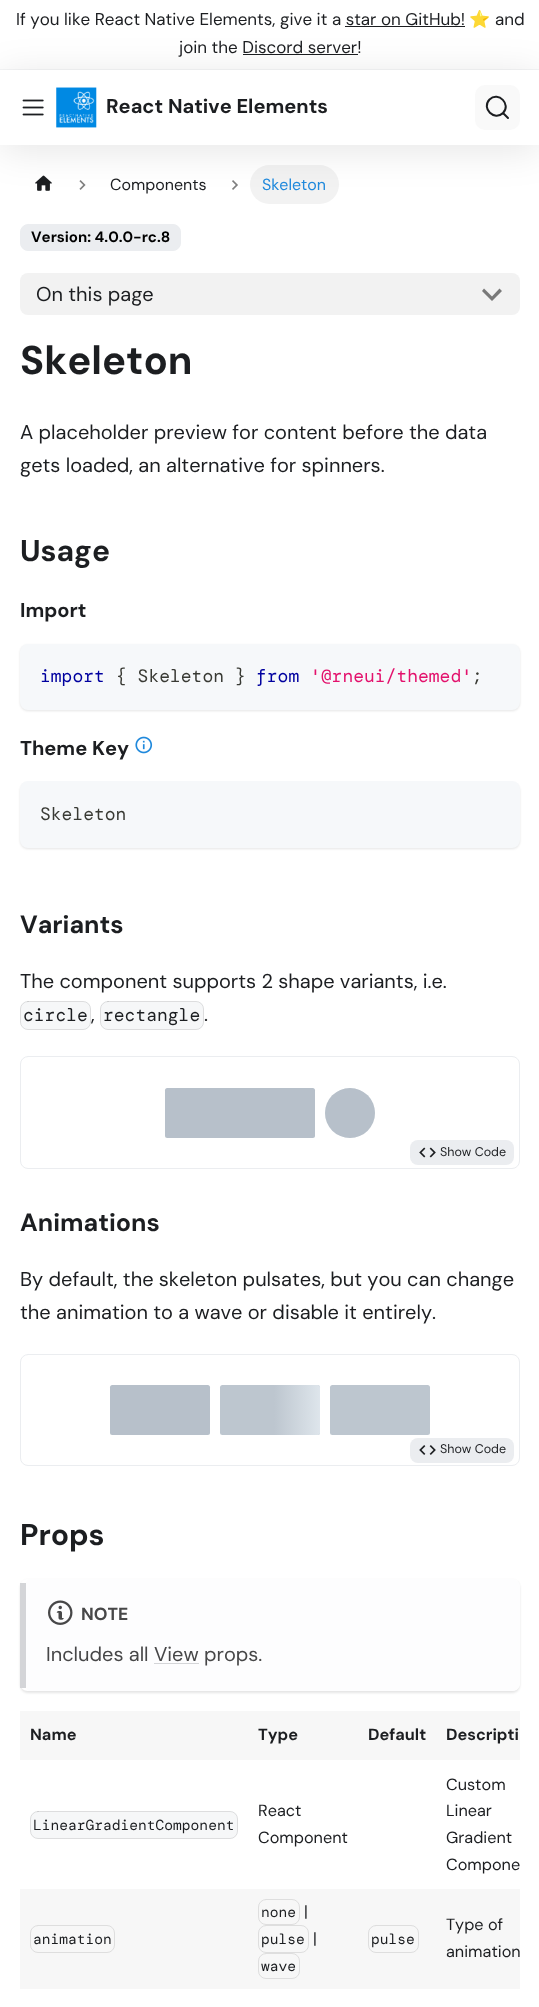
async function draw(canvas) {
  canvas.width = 539
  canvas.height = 2007
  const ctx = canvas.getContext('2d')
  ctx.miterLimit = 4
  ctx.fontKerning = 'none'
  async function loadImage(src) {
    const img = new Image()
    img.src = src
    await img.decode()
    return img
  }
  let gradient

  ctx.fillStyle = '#fff'
  ctx.fillRect(0, 0, 539, 2007)
  ctx.fillStyle = '#f5f6f7'
  ctx.fillRect(0, 69, 539, 1)
  ctx.font = '17px DM Sans'
  ctx.fillStyle = '#1c1e21'
  ctx.fillText('If you like React Native Elements, give it a star on GitHub!', 16, 25)
  ctx.font = '17px Noto Color Emoji'
  ctx.fillText('⭐', 469, 25)
  ctx.font = '17px DM Sans'
  ctx.fillText('and', 495, 25)
  ctx.fillRect(345, 26, 120, 1)
  ctx.fillText('join the Discord server!', 179, 53)
  ctx.fillRect(243, 54, 115, 1)
  ctx.drawImage(await loadImage('image2.png'), 35, 175, 17, 16)
  ctx.drawImage(await loadImage('image3.png'), 79, 180, 7, 10)
  ctx.drawImage(await loadImage('image4.png'), 232, 180, 6, 10)
  ctx.fillStyle = '#f2f2f2'
  ctx.beginPath()
  ctx.roundRect(250, 165, 89, 39, 19.5)
  ctx.fill()
  ctx.save()
  ctx.beginPath()
  ctx.moveTo(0, 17)
  ctx.lineTo(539, 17)
  ctx.lineTo(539, 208)
  ctx.lineTo(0, 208)
  ctx.closePath()
  ctx.moveTo(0, 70)
  ctx.lineTo(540, 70)
  ctx.lineTo(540, 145)
  ctx.lineTo(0, 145)
  ctx.closePath()
  ctx.clip('evenodd')
  ctx.fillStyle = '#0000001a'
  ctx.filter = 'blur(19px)'
  ctx.beginPath()
  ctx.rect(0, 75, 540, 75)
  ctx.fill()
  ctx.filter = 'none'
  ctx.restore()
  ctx.drawImage(await loadImage('image0.png'), 22, 99, 22, 17)
  ctx.drawImage(await loadImage('image1.png'), 56, 87, 41, 41)
  ctx.font = 'bold 20px DM Sans'
  ctx.fillStyle = '#1c1e21'
  ctx.fillText('React Native Elements', 106, 113)
  ctx.fillStyle = '#f9f9f9'
  ctx.beginPath()
  ctx.roundRect(475, 85, 45, 45, 10)
  ctx.fill()
  ctx.beginPath()
  ctx.moveTo(503, 113)
  ctx.lineTo(508, 118)
  ctx.lineTo(503, 113)
  ctx.bezierCurveTo(494.5, 121.5, 481, 108.5, 489.5, 99.5)
  ctx.bezierCurveTo(498.5, 91, 511.5, 104.5, 503, 113)
  ctx.closePath()
  ctx.strokeStyle = '#1c1e21'
  ctx.lineWidth = 2
  ctx.lineCap = 'round'
  ctx.lineJoin = 'round'
  ctx.stroke()
  ctx.font = '16px DM Sans'
  ctx.fillStyle = '#1c1e21'
  ctx.fillText('Components', 110, 190)
  ctx.fillStyle = '#2089dc'
  ctx.fillText('Skeleton', 262, 190)
  ctx.fillStyle = '#ebedf0'
  ctx.beginPath()
  ctx.roundRect(20.5, 224.5, 160, 26, 7.5)
  ctx.fill()
  ctx.strokeStyle = '#ebedf0'
  ctx.lineWidth = 1
  ctx.lineJoin = 'miter'
  ctx.stroke()
  ctx.font = 'bold 15px DM Sans'
  ctx.fillStyle = '#000'
  ctx.fillText('Version: 4.0.0-rc.8', 31, 242)
  ctx.fillStyle = '#f2f2f2'
  ctx.beginPath()
  ctx.roundRect(20, 273, 500, 42, 8)
  ctx.fill()
  ctx.font = '20px DM Sans'
  ctx.fillStyle = '#1c1e21'
  ctx.fillText('On this page', 36, 301)
  ctx.fillStyle = '#797979'
  ctx.beginPath()
  ctx.moveTo(499.5, 288.5)
  ctx.lineTo(492, 296.5)
  ctx.lineTo(484, 288.5)
  ctx.lineTo(482, 291)
  ctx.lineTo(492, 301)
  ctx.lineTo(502, 291)
  ctx.closePath()
  ctx.fill()
  ctx.font = 'bold 40px DM Sans'
  ctx.fillStyle = '#1c1e21'
  ctx.fillText('Skeleton', 20, 374)
  ctx.font = '20px DM Sans'
  ctx.fillText('A placeholder preview for content before the data', 20, 439)
  ctx.fillText('gets loaded, an alternative for spinners.', 20, 472)
  ctx.font = 'bold 30px DM Sans'
  ctx.fillText('Usage', 20, 561)
  ctx.font = 'bold 20px DM Sans'
  ctx.fillText('Import', 20, 617)
  ctx.fillStyle = '#0000001a'
  ctx.filter = 'blur(1px)'
  ctx.beginPath()
  ctx.roundRect(20, 645, 500, 66, 8)
  ctx.fill()
  ctx.filter = 'none'
  ctx.fillStyle = '#f6f8fa'
  ctx.beginPath()
  ctx.roundRect(20, 644, 500, 66, 8)
  ctx.fill()
  ctx.font = '18px DM Mono'
  ctx.fillStyle = '#00009f'
  ctx.fillText('import', 40, 682)
  ctx.fillStyle = '#393a34'
  ctx.fillText('{ Skeleton }', 116, 682)
  ctx.fillStyle = '#00009f'
  ctx.fillText('from', 256, 682)
  ctx.fillStyle = '#e3116c'
  ctx.fillText('\'@rneui/themed\'', 310, 682)
  ctx.fillStyle = '#393a34'
  ctx.fillText(';', 472, 682)
  ctx.font = 'bold 20px DM Sans'
  ctx.fillStyle = '#1c1e21'
  ctx.fillText('Theme Key', 20, 755)
  ctx.drawImage(await loadImage('image5.png'), 135, 736, 18, 18)
  ctx.fillStyle = '#0000001a'
  ctx.filter = 'blur(1px)'
  ctx.beginPath()
  ctx.roundRect(20, 783, 500, 66, 8)
  ctx.fill()
  ctx.filter = 'none'
  ctx.fillStyle = '#f6f8fa'
  ctx.beginPath()
  ctx.roundRect(20, 781, 500, 67, 8)
  ctx.fill()
  ctx.font = '18px DM Mono'
  ctx.fillStyle = '#393a34'
  ctx.fillText('Skeleton', 40, 820)
  ctx.font = 'bold 25px DM Sans'
  ctx.fillStyle = '#1c1e21'
  ctx.fillText('Variants', 20, 933)
  ctx.font = '20px DM Sans'
  ctx.fillText('The component supports 2 shape variants, i.e.', 20, 988)
  ctx.fillStyle = '#f6f7f8'
  ctx.beginPath()
  ctx.roundRect(20, 1001, 71, 29, 8)
  ctx.fill()
  ctx.beginPath()
  ctx.roundRect(20.5, 1001.5, 70, 28, 7.5)
  ctx.strokeStyle = '#0000001a'
  ctx.stroke()
  ctx.font = '18px DM Mono'
  ctx.fillStyle = '#1c1e21'
  ctx.fillText('circle', 23, 1021)
  ctx.font = '20px DM Sans'
  ctx.fillText(',', 91, 1021)
  ctx.fillStyle = '#f6f7f8'
  ctx.beginPath()
  ctx.roundRect(100, 1001, 104, 29, 8)
  ctx.fill()
  ctx.beginPath()
  ctx.roundRect(100.5, 1001.5, 103, 28, 7.5)
  ctx.stroke()
  ctx.font = '18px DM Mono'
  ctx.fillStyle = '#1c1e21'
  ctx.fillText('rectangle', 103, 1021)
  ctx.font = '20px DM Sans'
  ctx.fillText('.', 204, 1021)
  ctx.beginPath()
  ctx.roundRect(20.5, 1056.5, 499, 112, 7.5)
  ctx.strokeStyle = '#ebedf0'
  ctx.stroke()
  ctx.fillStyle = '#bdc6cf'
  ctx.beginPath()
  ctx.roundRect(165, 1088, 150, 50, 2.5)
  ctx.fill()
  ctx.fillStyle = '#a6b2be45'
  ctx.beginPath()
  ctx.roundRect(165, 1088, 150, 50, 2.5)
  ctx.fill()
  ctx.fillStyle = '#bdc6cf'
  ctx.beginPath()
  ctx.arc(350, 1113, 25, 0, 2 * Math.PI)
  ctx.fill()
  ctx.fillStyle = '#a6b2be45'
  ctx.beginPath()
  ctx.arc(350, 1113, 25, 0, 2 * Math.PI)
  ctx.fill()
  ctx.fillStyle = '#ebedf0'
  ctx.beginPath()
  ctx.roundRect(410, 1140, 104, 25, 8)
  ctx.fill()
  ctx.drawImage(await loadImage('image6.png'), 419, 1147, 17, 11)
  ctx.font = '12.5px DM Sans'
  ctx.fillStyle = '#1c1e21'
  ctx.fillText('Show Code', 440, 1156)
  ctx.font = 'bold 25px DM Sans'
  ctx.fillText('Animations', 20, 1231)
  ctx.font = '20px DM Sans'
  ctx.fillText('By default, the skeleton pulsates, but you can change', 20, 1286)
  ctx.fillText('the animation to a wave or disable it entirely.', 20, 1319)
  ctx.beginPath()
  ctx.roundRect(20.5, 1354.5, 499, 111, 7.5)
  ctx.stroke()
  ctx.fillStyle = '#bdc6cf'
  ctx.beginPath()
  ctx.roundRect(110, 1385, 100, 50, 2.5)
  ctx.fill()
  ctx.fillStyle = '#a6b2be45'
  ctx.beginPath()
  ctx.roundRect(110, 1385, 100, 50, 2.5)
  ctx.fill()
  ctx.fillStyle = '#bdc6cf'
  ctx.beginPath()
  ctx.roundRect(220, 1385, 100, 50, 2.5)
  ctx.fill()
  gradient = ctx.createLinearGradient(274, 1410, 374, 1410)
  gradient.addColorStop(0, '#bdc6cf')
  gradient.addColorStop(0.5, '#e1e8ee')
  gradient.addColorStop(1, '#bdc6cf')
  ctx.fillStyle = gradient
  ctx.beginPath()
  ctx.roundRect(274, 1385, 46, 50, [0, 2.5, 2.5, 0])
  ctx.fill()
  ctx.fillStyle = '#bdc6cf'
  ctx.beginPath()
  ctx.roundRect(330, 1385, 100, 50, 2.5)
  ctx.fill()
  ctx.fillStyle = '#ebedf0'
  ctx.beginPath()
  ctx.roundRect(410, 1438, 104, 25, 8)
  ctx.fill()
  ctx.drawImage(await loadImage('image7.png'), 419, 1445, 17, 10)
  ctx.font = '12.5px DM Sans'
  ctx.fillStyle = '#1c1e21'
  ctx.fillText('Show Code', 440, 1453)
  ctx.font = 'bold 30px DM Sans'
  ctx.fillText('Props', 20, 1545)
  ctx.save()
  ctx.beginPath()
  ctx.moveTo(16, 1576)
  ctx.lineTo(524, 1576)
  ctx.lineTo(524, 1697)
  ctx.lineTo(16, 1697)
  ctx.closePath()
  ctx.moveTo(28, 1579)
  ctx.lineTo(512, 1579)
  ctx.bezierCurveTo(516.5, 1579, 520, 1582.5, 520, 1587)
  ctx.lineTo(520, 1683)
  ctx.bezierCurveTo(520, 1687.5, 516.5, 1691, 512, 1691)
  ctx.lineTo(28, 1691)
  ctx.bezierCurveTo(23.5, 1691, 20, 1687.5, 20, 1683)
  ctx.lineTo(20, 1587)
  ctx.bezierCurveTo(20, 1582.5, 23.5, 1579, 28, 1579)
  ctx.closePath()
  ctx.clip('evenodd')
  ctx.fillStyle = '#0000001a'
  ctx.filter = 'blur(1px)'
  ctx.beginPath()
  ctx.roundRect(20, 1580, 500, 113, 8)
  ctx.fill()
  ctx.filter = 'none'
  ctx.restore()
  ctx.fillStyle = '#fdfdfe'
  ctx.beginPath()
  ctx.moveTo(28, 1579)
  ctx.lineTo(512, 1579)
  ctx.bezierCurveTo(516, 1579, 520, 1582, 520, 1587)
  ctx.lineTo(520, 1683)
  ctx.bezierCurveTo(520, 1688, 516, 1691, 512, 1691)
  ctx.lineTo(28, 1691)
  ctx.bezierCurveTo(27, 1691, 26, 1688, 26, 1683)
  ctx.lineTo(26, 1587)
  ctx.bezierCurveTo(26, 1582, 27, 1579, 28, 1579)
  ctx.closePath()
  ctx.fill()
  ctx.fillStyle = '#d4d5d8'
  ctx.fillRect(20, 1583, 6, 105)
  ctx.drawImage(await loadImage('image8.png'), 48, 1600, 25, 25)
  ctx.font = 'bold 17.5px DM Sans'
  ctx.fillStyle = '#474748'
  ctx.fillText('NOTE', 81, 1620)
  ctx.font = '20px DM Sans'
  ctx.fillText('Includes all View props.', 46, 1661)
  ctx.fillStyle = '#d4d5d8'
  ctx.fillRect(154, 1663, 45, 1)
  ctx.fillStyle = '#f7f7f7'
  ctx.fillRect(20, 1711, 500, 49)
  ctx.font = 'bold 16.25px DM Sans'
  ctx.fillStyle = '#1c1e21'
  ctx.fillText('Name', 30, 1740)
  ctx.fillText('Type', 258, 1740)
  ctx.fillText('Default', 368, 1740)
  ctx.fillText('Descripti', 446, 1740)
  ctx.fillStyle = '#f6f7f8'
  ctx.beginPath()
  ctx.roundRect(30, 1811, 208, 28, 8)
  ctx.fill()
  ctx.beginPath()
  ctx.roundRect(30.5, 1811.5, 207, 27, 7.5)
  ctx.strokeStyle = '#0000001a'
  ctx.stroke()
  ctx.font = '14.6px DM Mono'
  ctx.fillStyle = '#1c1e21'
  ctx.fillText('LinearGradientComponent', 33, 1830)
  ctx.font = '16.25px DM Sans'
  ctx.fillText('React', 258, 1816)
  ctx.fillText('Component', 258, 1843)
  ctx.fillText('Custom', 446, 1790)
  ctx.fillText('Linear', 446, 1816)
  ctx.fillText('Gradient', 446, 1843)
  ctx.fillText('Compone', 446, 1870)
  ctx.fillStyle = '#f7f7f7'
  ctx.fillRect(20, 1889, 500, 100)
  ctx.beginPath()
  ctx.roundRect(30.5, 1925.5, 84, 27, 7.5)
  ctx.strokeStyle = '#dedede'
  ctx.stroke()
  ctx.font = '14.6px DM Mono'
  ctx.fillStyle = '#1c1e21'
  ctx.fillText('animation', 33, 1944)
  ctx.beginPath()
  ctx.roundRect(258.5, 1899.5, 41, 25, 7.5)
  ctx.stroke()
  ctx.fillText('none', 261, 1917)
  ctx.font = '16.25px DM Sans'
  ctx.fillText('|', 304, 1917)
  ctx.beginPath()
  ctx.roundRect(258.5, 1925.5, 50, 27, 7.5)
  ctx.stroke()
  ctx.font = '14.6px DM Mono'
  ctx.fillText('pulse', 261, 1944)
  ctx.font = '16.25px DM Sans'
  ctx.fillText('|', 313, 1944)
  ctx.beginPath()
  ctx.roundRect(258.5, 1953.5, 41, 25, 7.5)
  ctx.stroke()
  ctx.font = '14.6px DM Mono'
  ctx.fillText('wave', 261, 1971)
  ctx.beginPath()
  ctx.roundRect(368.5, 1925.5, 50, 27, 7.5)
  ctx.stroke()
  ctx.fillText('pulse', 371, 1944)
  ctx.font = '16.25px DM Sans'
  ctx.fillText('Type of', 446, 1930)
  ctx.fillText('animation', 446, 1957)
}

draw(document.querySelector('canvas'))
